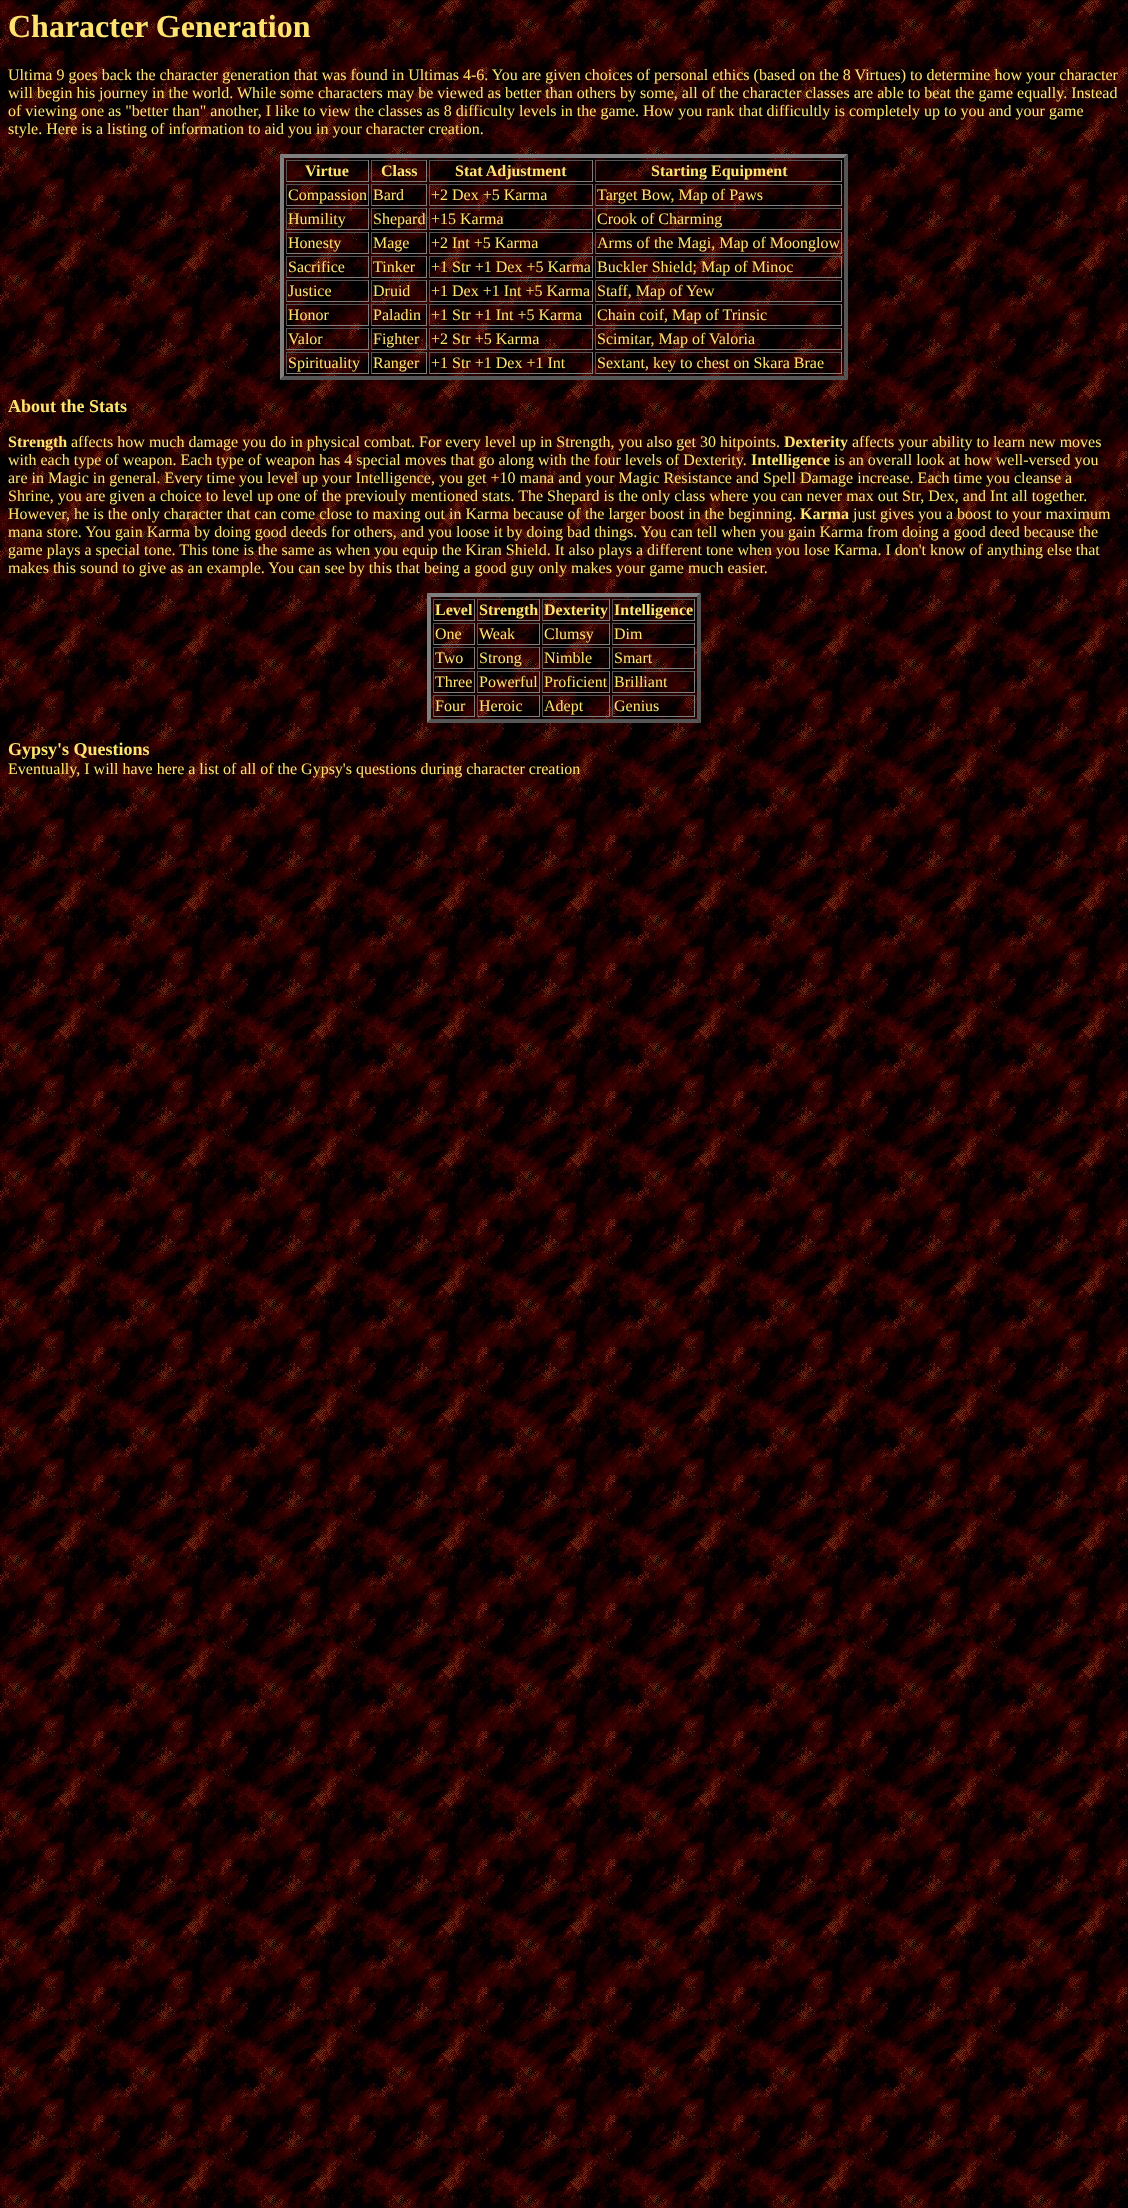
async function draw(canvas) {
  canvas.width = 1128
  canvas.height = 2208
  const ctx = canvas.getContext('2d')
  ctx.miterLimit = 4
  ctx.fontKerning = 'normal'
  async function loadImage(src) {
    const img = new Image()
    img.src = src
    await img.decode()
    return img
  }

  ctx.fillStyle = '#fff'
  ctx.fillRect(0, 0, 1128, 2208)
  ctx.drawImage(await loadImage('image0.png'), 0, 0, 1128, 2208)
  ctx.font = 'bold 32px Liberation Serif'
  ctx.fillStyle = '#ffe36f'
  ctx.fillText('Character Generation', 8, 37)
  ctx.font = '16px Liberation Serif'
  ctx.fillText('Ultima 9 goes back the character generation that was found in Ultimas 4-6. You are given choices of personal ethics (based on the 8 Virtues) to determine how your character', 8, 80)
  ctx.fillText('will begin his journey in the world. While some characters may be viewed as better than others by some, all of the character classes are able to beat the game equally. Instead', 8, 98)
  ctx.fillText('of viewing one as "better than" another, I like to view the classes as 8 difficulty levels in the game. How you rank that difficultly is completely up to you and your game', 8, 116)
  ctx.fillText('style. Here is a listing of information to aid you in your character creation.', 8, 134)
  ctx.fillStyle = '#808080'
  ctx.beginPath()
  ctx.moveTo(280, 154)
  ctx.lineTo(848, 154)
  ctx.lineTo(844, 158)
  ctx.lineTo(284, 158)
  ctx.closePath()
  ctx.fill()
  ctx.fillStyle = '#555'
  ctx.beginPath()
  ctx.moveTo(848, 154)
  ctx.lineTo(848, 380)
  ctx.lineTo(844, 376)
  ctx.lineTo(844, 158)
  ctx.closePath()
  ctx.fill()
  ctx.beginPath()
  ctx.moveTo(848, 380)
  ctx.lineTo(280, 380)
  ctx.lineTo(284, 376)
  ctx.lineTo(844, 376)
  ctx.closePath()
  ctx.fill()
  ctx.fillStyle = '#808080'
  ctx.beginPath()
  ctx.moveTo(280, 380)
  ctx.lineTo(280, 154)
  ctx.lineTo(284, 158)
  ctx.lineTo(284, 376)
  ctx.closePath()
  ctx.fill()
  ctx.fillStyle = '#555'
  ctx.fillRect(286, 160, 83, 1)
  ctx.fillStyle = '#808080'
  ctx.fillRect(368, 160, 1, 22)
  ctx.fillRect(286, 181, 83, 1)
  ctx.fillStyle = '#555'
  ctx.fillRect(286, 160, 1, 22)
  ctx.font = 'bold 16px Liberation Serif'
  ctx.fillStyle = '#ffe36f'
  ctx.fillText('Virtue', 305, 176)
  ctx.fillStyle = '#555'
  ctx.fillRect(371, 160, 56, 1)
  ctx.fillStyle = '#808080'
  ctx.fillRect(426, 160, 1, 22)
  ctx.fillRect(371, 181, 56, 1)
  ctx.fillStyle = '#555'
  ctx.fillRect(371, 160, 1, 22)
  ctx.fillStyle = '#ffe36f'
  ctx.fillText('Class', 381, 176)
  ctx.fillStyle = '#555'
  ctx.fillRect(429, 160, 164, 1)
  ctx.fillStyle = '#808080'
  ctx.fillRect(592, 160, 1, 22)
  ctx.fillRect(429, 181, 164, 1)
  ctx.fillStyle = '#555'
  ctx.fillRect(429, 160, 1, 22)
  ctx.fillStyle = '#ffe36f'
  ctx.fillText('Stat Adjustment', 455, 176)
  ctx.fillStyle = '#555'
  ctx.fillRect(595, 160, 247, 1)
  ctx.fillStyle = '#808080'
  ctx.fillRect(841, 160, 1, 22)
  ctx.fillRect(595, 181, 247, 1)
  ctx.fillStyle = '#555'
  ctx.fillRect(595, 160, 1, 22)
  ctx.fillStyle = '#ffe36f'
  ctx.fillText('Starting Equipment', 651, 176)
  ctx.fillStyle = '#555'
  ctx.fillRect(286, 184, 83, 1)
  ctx.fillStyle = '#808080'
  ctx.fillRect(368, 184, 1, 22)
  ctx.fillRect(286, 205, 83, 1)
  ctx.fillStyle = '#555'
  ctx.fillRect(286, 184, 1, 22)
  ctx.font = '16px Liberation Serif'
  ctx.fillStyle = '#ffe36f'
  ctx.fillText('Compassion', 288, 200)
  ctx.fillStyle = '#555'
  ctx.fillRect(371, 184, 56, 1)
  ctx.fillStyle = '#808080'
  ctx.fillRect(426, 184, 1, 22)
  ctx.fillRect(371, 205, 56, 1)
  ctx.fillStyle = '#555'
  ctx.fillRect(371, 184, 1, 22)
  ctx.fillStyle = '#ffe36f'
  ctx.fillText('Bard', 373, 200)
  ctx.fillStyle = '#555'
  ctx.fillRect(429, 184, 164, 1)
  ctx.fillStyle = '#808080'
  ctx.fillRect(592, 184, 1, 22)
  ctx.fillRect(429, 205, 164, 1)
  ctx.fillStyle = '#555'
  ctx.fillRect(429, 184, 1, 22)
  ctx.fillStyle = '#ffe36f'
  ctx.fillText('+2 Dex +5 Karma', 431, 200)
  ctx.fillStyle = '#555'
  ctx.fillRect(595, 184, 247, 1)
  ctx.fillStyle = '#808080'
  ctx.fillRect(841, 184, 1, 22)
  ctx.fillRect(595, 205, 247, 1)
  ctx.fillStyle = '#555'
  ctx.fillRect(595, 184, 1, 22)
  ctx.fillStyle = '#ffe36f'
  ctx.fillText('Target Bow, Map of Paws', 597, 200)
  ctx.fillStyle = '#555'
  ctx.fillRect(286, 208, 83, 1)
  ctx.fillStyle = '#808080'
  ctx.fillRect(368, 208, 1, 22)
  ctx.fillRect(286, 229, 83, 1)
  ctx.fillStyle = '#555'
  ctx.fillRect(286, 208, 1, 22)
  ctx.fillStyle = '#ffe36f'
  ctx.fillText('Humility', 288, 224)
  ctx.fillStyle = '#555'
  ctx.fillRect(371, 208, 56, 1)
  ctx.fillStyle = '#808080'
  ctx.fillRect(426, 208, 1, 22)
  ctx.fillRect(371, 229, 56, 1)
  ctx.fillStyle = '#555'
  ctx.fillRect(371, 208, 1, 22)
  ctx.fillStyle = '#ffe36f'
  ctx.fillText('Shepard', 373, 224)
  ctx.fillStyle = '#555'
  ctx.fillRect(429, 208, 164, 1)
  ctx.fillStyle = '#808080'
  ctx.fillRect(592, 208, 1, 22)
  ctx.fillRect(429, 229, 164, 1)
  ctx.fillStyle = '#555'
  ctx.fillRect(429, 208, 1, 22)
  ctx.fillStyle = '#ffe36f'
  ctx.fillText('+15 Karma', 431, 224)
  ctx.fillStyle = '#555'
  ctx.fillRect(595, 208, 247, 1)
  ctx.fillStyle = '#808080'
  ctx.fillRect(841, 208, 1, 22)
  ctx.fillRect(595, 229, 247, 1)
  ctx.fillStyle = '#555'
  ctx.fillRect(595, 208, 1, 22)
  ctx.fillStyle = '#ffe36f'
  ctx.fillText('Crook of Charming', 597, 224)
  ctx.fillStyle = '#555'
  ctx.fillRect(286, 232, 83, 1)
  ctx.fillStyle = '#808080'
  ctx.fillRect(368, 232, 1, 22)
  ctx.fillRect(286, 253, 83, 1)
  ctx.fillStyle = '#555'
  ctx.fillRect(286, 232, 1, 22)
  ctx.fillStyle = '#ffe36f'
  ctx.fillText('Honesty', 288, 248)
  ctx.fillStyle = '#555'
  ctx.fillRect(371, 232, 56, 1)
  ctx.fillStyle = '#808080'
  ctx.fillRect(426, 232, 1, 22)
  ctx.fillRect(371, 253, 56, 1)
  ctx.fillStyle = '#555'
  ctx.fillRect(371, 232, 1, 22)
  ctx.fillStyle = '#ffe36f'
  ctx.fillText('Mage', 373, 248)
  ctx.fillStyle = '#555'
  ctx.fillRect(429, 232, 164, 1)
  ctx.fillStyle = '#808080'
  ctx.fillRect(592, 232, 1, 22)
  ctx.fillRect(429, 253, 164, 1)
  ctx.fillStyle = '#555'
  ctx.fillRect(429, 232, 1, 22)
  ctx.fillStyle = '#ffe36f'
  ctx.fillText('+2 Int +5 Karma', 431, 248)
  ctx.fillStyle = '#555'
  ctx.fillRect(595, 232, 247, 1)
  ctx.fillStyle = '#808080'
  ctx.fillRect(841, 232, 1, 22)
  ctx.fillRect(595, 253, 247, 1)
  ctx.fillStyle = '#555'
  ctx.fillRect(595, 232, 1, 22)
  ctx.fillStyle = '#ffe36f'
  ctx.fillText('Arms of the Magi, Map of Moonglow', 597, 248)
  ctx.fillStyle = '#555'
  ctx.fillRect(286, 256, 83, 1)
  ctx.fillStyle = '#808080'
  ctx.fillRect(368, 256, 1, 22)
  ctx.fillRect(286, 277, 83, 1)
  ctx.fillStyle = '#555'
  ctx.fillRect(286, 256, 1, 22)
  ctx.fillStyle = '#ffe36f'
  ctx.fillText('Sacrifice', 288, 272)
  ctx.fillStyle = '#555'
  ctx.fillRect(371, 256, 56, 1)
  ctx.fillStyle = '#808080'
  ctx.fillRect(426, 256, 1, 22)
  ctx.fillRect(371, 277, 56, 1)
  ctx.fillStyle = '#555'
  ctx.fillRect(371, 256, 1, 22)
  ctx.fillStyle = '#ffe36f'
  ctx.fillText('Tinker', 373, 272)
  ctx.fillStyle = '#555'
  ctx.fillRect(429, 256, 164, 1)
  ctx.fillStyle = '#808080'
  ctx.fillRect(592, 256, 1, 22)
  ctx.fillRect(429, 277, 164, 1)
  ctx.fillStyle = '#555'
  ctx.fillRect(429, 256, 1, 22)
  ctx.fillStyle = '#ffe36f'
  ctx.fillText('+1 Str +1 Dex +5 Karma', 431, 272)
  ctx.fillStyle = '#555'
  ctx.fillRect(595, 256, 247, 1)
  ctx.fillStyle = '#808080'
  ctx.fillRect(841, 256, 1, 22)
  ctx.fillRect(595, 277, 247, 1)
  ctx.fillStyle = '#555'
  ctx.fillRect(595, 256, 1, 22)
  ctx.fillStyle = '#ffe36f'
  ctx.fillText('Buckler Shield; Map of Minoc', 597, 272)
  ctx.fillStyle = '#555'
  ctx.fillRect(286, 280, 83, 1)
  ctx.fillStyle = '#808080'
  ctx.fillRect(368, 280, 1, 22)
  ctx.fillRect(286, 301, 83, 1)
  ctx.fillStyle = '#555'
  ctx.fillRect(286, 280, 1, 22)
  ctx.fillStyle = '#ffe36f'
  ctx.fillText('Justice', 288, 296)
  ctx.fillStyle = '#555'
  ctx.fillRect(371, 280, 56, 1)
  ctx.fillStyle = '#808080'
  ctx.fillRect(426, 280, 1, 22)
  ctx.fillRect(371, 301, 56, 1)
  ctx.fillStyle = '#555'
  ctx.fillRect(371, 280, 1, 22)
  ctx.fillStyle = '#ffe36f'
  ctx.fillText('Druid', 373, 296)
  ctx.fillStyle = '#555'
  ctx.fillRect(429, 280, 164, 1)
  ctx.fillStyle = '#808080'
  ctx.fillRect(592, 280, 1, 22)
  ctx.fillRect(429, 301, 164, 1)
  ctx.fillStyle = '#555'
  ctx.fillRect(429, 280, 1, 22)
  ctx.fillStyle = '#ffe36f'
  ctx.fillText('+1 Dex +1 Int +5 Karma', 431, 296)
  ctx.fillStyle = '#555'
  ctx.fillRect(595, 280, 247, 1)
  ctx.fillStyle = '#808080'
  ctx.fillRect(841, 280, 1, 22)
  ctx.fillRect(595, 301, 247, 1)
  ctx.fillStyle = '#555'
  ctx.fillRect(595, 280, 1, 22)
  ctx.fillStyle = '#ffe36f'
  ctx.fillText('Staff, Map of Yew', 597, 296)
  ctx.fillStyle = '#555'
  ctx.fillRect(286, 304, 83, 1)
  ctx.fillStyle = '#808080'
  ctx.fillRect(368, 304, 1, 22)
  ctx.fillRect(286, 325, 83, 1)
  ctx.fillStyle = '#555'
  ctx.fillRect(286, 304, 1, 22)
  ctx.fillStyle = '#ffe36f'
  ctx.fillText('Honor', 288, 320)
  ctx.fillStyle = '#555'
  ctx.fillRect(371, 304, 56, 1)
  ctx.fillStyle = '#808080'
  ctx.fillRect(426, 304, 1, 22)
  ctx.fillRect(371, 325, 56, 1)
  ctx.fillStyle = '#555'
  ctx.fillRect(371, 304, 1, 22)
  ctx.fillStyle = '#ffe36f'
  ctx.fillText('Paladin', 373, 320)
  ctx.fillStyle = '#555'
  ctx.fillRect(429, 304, 164, 1)
  ctx.fillStyle = '#808080'
  ctx.fillRect(592, 304, 1, 22)
  ctx.fillRect(429, 325, 164, 1)
  ctx.fillStyle = '#555'
  ctx.fillRect(429, 304, 1, 22)
  ctx.fillStyle = '#ffe36f'
  ctx.fillText('+1 Str +1 Int +5 Karma', 431, 320)
  ctx.fillStyle = '#555'
  ctx.fillRect(595, 304, 247, 1)
  ctx.fillStyle = '#808080'
  ctx.fillRect(841, 304, 1, 22)
  ctx.fillRect(595, 325, 247, 1)
  ctx.fillStyle = '#555'
  ctx.fillRect(595, 304, 1, 22)
  ctx.fillStyle = '#ffe36f'
  ctx.fillText('Chain coif, Map of Trinsic', 597, 320)
  ctx.fillStyle = '#555'
  ctx.fillRect(286, 328, 83, 1)
  ctx.fillStyle = '#808080'
  ctx.fillRect(368, 328, 1, 22)
  ctx.fillRect(286, 349, 83, 1)
  ctx.fillStyle = '#555'
  ctx.fillRect(286, 328, 1, 22)
  ctx.fillStyle = '#ffe36f'
  ctx.fillText('Valor', 288, 344)
  ctx.fillStyle = '#555'
  ctx.fillRect(371, 328, 56, 1)
  ctx.fillStyle = '#808080'
  ctx.fillRect(426, 328, 1, 22)
  ctx.fillRect(371, 349, 56, 1)
  ctx.fillStyle = '#555'
  ctx.fillRect(371, 328, 1, 22)
  ctx.fillStyle = '#ffe36f'
  ctx.fillText('Fighter', 373, 344)
  ctx.fillStyle = '#555'
  ctx.fillRect(429, 328, 164, 1)
  ctx.fillStyle = '#808080'
  ctx.fillRect(592, 328, 1, 22)
  ctx.fillRect(429, 349, 164, 1)
  ctx.fillStyle = '#555'
  ctx.fillRect(429, 328, 1, 22)
  ctx.fillStyle = '#ffe36f'
  ctx.fillText('+2 Str +5 Karma', 431, 344)
  ctx.fillStyle = '#555'
  ctx.fillRect(595, 328, 247, 1)
  ctx.fillStyle = '#808080'
  ctx.fillRect(841, 328, 1, 22)
  ctx.fillRect(595, 349, 247, 1)
  ctx.fillStyle = '#555'
  ctx.fillRect(595, 328, 1, 22)
  ctx.fillStyle = '#ffe36f'
  ctx.fillText('Scimitar, Map of Valoria', 597, 344)
  ctx.fillStyle = '#555'
  ctx.fillRect(286, 352, 83, 1)
  ctx.fillStyle = '#808080'
  ctx.fillRect(368, 352, 1, 22)
  ctx.fillRect(286, 373, 83, 1)
  ctx.fillStyle = '#555'
  ctx.fillRect(286, 352, 1, 22)
  ctx.fillStyle = '#ffe36f'
  ctx.fillText('Spirituality', 288, 368)
  ctx.fillStyle = '#555'
  ctx.fillRect(371, 352, 56, 1)
  ctx.fillStyle = '#808080'
  ctx.fillRect(426, 352, 1, 22)
  ctx.fillRect(371, 373, 56, 1)
  ctx.fillStyle = '#555'
  ctx.fillRect(371, 352, 1, 22)
  ctx.fillStyle = '#ffe36f'
  ctx.fillText('Ranger', 373, 368)
  ctx.fillStyle = '#555'
  ctx.fillRect(429, 352, 164, 1)
  ctx.fillStyle = '#808080'
  ctx.fillRect(592, 352, 1, 22)
  ctx.fillRect(429, 373, 164, 1)
  ctx.fillStyle = '#555'
  ctx.fillRect(429, 352, 1, 22)
  ctx.fillStyle = '#ffe36f'
  ctx.fillText('+1 Str +1 Dex +1 Int', 431, 368)
  ctx.fillStyle = '#555'
  ctx.fillRect(595, 352, 247, 1)
  ctx.fillStyle = '#808080'
  ctx.fillRect(841, 352, 1, 22)
  ctx.fillRect(595, 373, 247, 1)
  ctx.fillStyle = '#555'
  ctx.fillRect(595, 352, 1, 22)
  ctx.fillStyle = '#ffe36f'
  ctx.fillText('Sextant, key to chest on Skara Brae', 597, 368)
  ctx.font = 'bold 18px Liberation Serif'
  ctx.fillText('About the Stats', 8, 412)
  ctx.font = 'bold 16px Liberation Serif'
  ctx.fillText('Strength', 8, 447)
  ctx.font = '16px Liberation Serif'
  ctx.fillText('affects how much damage you do in physical combat. For every level up in Strength, you also get 30 hitpoints.', 71, 447)
  ctx.font = 'bold 16px Liberation Serif'
  ctx.fillText('Dexterity', 784, 447)
  ctx.font = '16px Liberation Serif'
  ctx.fillText('affects your ability to learn new moves', 852, 447)
  ctx.fillText('with each type of weapon. Each type of weapon has 4 special moves that go along with the four levels of Dexterity.', 8, 465)
  ctx.font = 'bold 16px Liberation Serif'
  ctx.fillText('Intelligence', 751, 465)
  ctx.font = '16px Liberation Serif'
  ctx.fillText('is an overall look at how well-versed you', 834, 465)
  ctx.fillText('are in Magic in general. Every time you level up your Intelligence, you get +10 mana and your Magic Resistance and Spell Damage increase. Each time you cleanse a', 8, 483)
  ctx.fillText('Shrine, you are given a choice to level up one of the previouly mentioned stats. The Shepard is the only class where you can never max out Str, Dex, and Int all together.', 8, 501)
  ctx.fillText('However, he is the only character that can come close to maxing out in Karma because of the larger boost in the beginning.', 8, 519)
  ctx.font = 'bold 16px Liberation Serif'
  ctx.fillText('Karma', 800, 519)
  ctx.font = '16px Liberation Serif'
  ctx.fillText('just gives you a boost to your maximum', 853, 519)
  ctx.fillText('mana store. You gain Karma by doing good deeds for others, and you loose it by doing bad things. You can tell when you gain Karma from doing a good deed because the', 8, 537)
  ctx.fillText('game plays a special tone. This tone is the same as when you equip the Kiran Shield. It also plays a different tone when you lose Karma. I don\'t know of anything else that', 8, 555)
  ctx.fillText('makes this sound to give as an example. You can see by this that being a good guy only makes your game much easier.', 8, 573)
  ctx.fillStyle = '#808080'
  ctx.beginPath()
  ctx.moveTo(427, 593)
  ctx.lineTo(701, 593)
  ctx.lineTo(697, 597)
  ctx.lineTo(431, 597)
  ctx.closePath()
  ctx.fill()
  ctx.fillStyle = '#555'
  ctx.beginPath()
  ctx.moveTo(701, 593)
  ctx.lineTo(701, 723)
  ctx.lineTo(697, 719)
  ctx.lineTo(697, 597)
  ctx.closePath()
  ctx.fill()
  ctx.beginPath()
  ctx.moveTo(701, 723)
  ctx.lineTo(427, 723)
  ctx.lineTo(431, 719)
  ctx.lineTo(697, 719)
  ctx.closePath()
  ctx.fill()
  ctx.fillStyle = '#808080'
  ctx.beginPath()
  ctx.moveTo(427, 723)
  ctx.lineTo(427, 593)
  ctx.lineTo(431, 597)
  ctx.lineTo(431, 719)
  ctx.closePath()
  ctx.fill()
  ctx.fillStyle = '#555'
  ctx.fillRect(433, 599, 42, 1)
  ctx.fillStyle = '#808080'
  ctx.fillRect(474, 599, 1, 22)
  ctx.fillRect(433, 620, 42, 1)
  ctx.fillStyle = '#555'
  ctx.fillRect(433, 599, 1, 22)
  ctx.font = 'bold 16px Liberation Serif'
  ctx.fillStyle = '#ffe36f'
  ctx.fillText('Level', 435, 615)
  ctx.fillStyle = '#555'
  ctx.fillRect(477, 599, 63, 1)
  ctx.fillStyle = '#808080'
  ctx.fillRect(539, 599, 1, 22)
  ctx.fillRect(477, 620, 63, 1)
  ctx.fillStyle = '#555'
  ctx.fillRect(477, 599, 1, 22)
  ctx.fillStyle = '#ffe36f'
  ctx.fillText('Strength', 479, 615)
  ctx.fillStyle = '#555'
  ctx.fillRect(542, 599, 68, 1)
  ctx.fillStyle = '#808080'
  ctx.fillRect(609, 599, 1, 22)
  ctx.fillRect(542, 620, 68, 1)
  ctx.fillStyle = '#555'
  ctx.fillRect(542, 599, 1, 22)
  ctx.fillStyle = '#ffe36f'
  ctx.fillText('Dexterity', 544, 615)
  ctx.fillStyle = '#555'
  ctx.fillRect(612, 599, 83, 1)
  ctx.fillStyle = '#808080'
  ctx.fillRect(694, 599, 1, 22)
  ctx.fillRect(612, 620, 83, 1)
  ctx.fillStyle = '#555'
  ctx.fillRect(612, 599, 1, 22)
  ctx.fillStyle = '#ffe36f'
  ctx.fillText('Intelligence', 614, 615)
  ctx.fillStyle = '#555'
  ctx.fillRect(433, 623, 42, 1)
  ctx.fillStyle = '#808080'
  ctx.fillRect(474, 623, 1, 22)
  ctx.fillRect(433, 644, 42, 1)
  ctx.fillStyle = '#555'
  ctx.fillRect(433, 623, 1, 22)
  ctx.font = '16px Liberation Serif'
  ctx.fillStyle = '#ffe36f'
  ctx.fillText('One', 435, 639)
  ctx.fillStyle = '#555'
  ctx.fillRect(477, 623, 63, 1)
  ctx.fillStyle = '#808080'
  ctx.fillRect(539, 623, 1, 22)
  ctx.fillRect(477, 644, 63, 1)
  ctx.fillStyle = '#555'
  ctx.fillRect(477, 623, 1, 22)
  ctx.fillStyle = '#ffe36f'
  ctx.fillText('Weak', 479, 639)
  ctx.fillStyle = '#555'
  ctx.fillRect(542, 623, 68, 1)
  ctx.fillStyle = '#808080'
  ctx.fillRect(609, 623, 1, 22)
  ctx.fillRect(542, 644, 68, 1)
  ctx.fillStyle = '#555'
  ctx.fillRect(542, 623, 1, 22)
  ctx.fillStyle = '#ffe36f'
  ctx.fillText('Clumsy', 544, 639)
  ctx.fillStyle = '#555'
  ctx.fillRect(612, 623, 83, 1)
  ctx.fillStyle = '#808080'
  ctx.fillRect(694, 623, 1, 22)
  ctx.fillRect(612, 644, 83, 1)
  ctx.fillStyle = '#555'
  ctx.fillRect(612, 623, 1, 22)
  ctx.fillStyle = '#ffe36f'
  ctx.fillText('Dim', 614, 639)
  ctx.fillStyle = '#555'
  ctx.fillRect(433, 647, 42, 1)
  ctx.fillStyle = '#808080'
  ctx.fillRect(474, 647, 1, 22)
  ctx.fillRect(433, 668, 42, 1)
  ctx.fillStyle = '#555'
  ctx.fillRect(433, 647, 1, 22)
  ctx.fillStyle = '#ffe36f'
  ctx.fillText('Two', 435, 663)
  ctx.fillStyle = '#555'
  ctx.fillRect(477, 647, 63, 1)
  ctx.fillStyle = '#808080'
  ctx.fillRect(539, 647, 1, 22)
  ctx.fillRect(477, 668, 63, 1)
  ctx.fillStyle = '#555'
  ctx.fillRect(477, 647, 1, 22)
  ctx.fillStyle = '#ffe36f'
  ctx.fillText('Strong', 479, 663)
  ctx.fillStyle = '#555'
  ctx.fillRect(542, 647, 68, 1)
  ctx.fillStyle = '#808080'
  ctx.fillRect(609, 647, 1, 22)
  ctx.fillRect(542, 668, 68, 1)
  ctx.fillStyle = '#555'
  ctx.fillRect(542, 647, 1, 22)
  ctx.fillStyle = '#ffe36f'
  ctx.fillText('Nimble', 544, 663)
  ctx.fillStyle = '#555'
  ctx.fillRect(612, 647, 83, 1)
  ctx.fillStyle = '#808080'
  ctx.fillRect(694, 647, 1, 22)
  ctx.fillRect(612, 668, 83, 1)
  ctx.fillStyle = '#555'
  ctx.fillRect(612, 647, 1, 22)
  ctx.fillStyle = '#ffe36f'
  ctx.fillText('Smart', 614, 663)
  ctx.fillStyle = '#555'
  ctx.fillRect(433, 671, 42, 1)
  ctx.fillStyle = '#808080'
  ctx.fillRect(474, 671, 1, 22)
  ctx.fillRect(433, 692, 42, 1)
  ctx.fillStyle = '#555'
  ctx.fillRect(433, 671, 1, 22)
  ctx.fillStyle = '#ffe36f'
  ctx.fillText('Three', 435, 687)
  ctx.fillStyle = '#555'
  ctx.fillRect(477, 671, 63, 1)
  ctx.fillStyle = '#808080'
  ctx.fillRect(539, 671, 1, 22)
  ctx.fillRect(477, 692, 63, 1)
  ctx.fillStyle = '#555'
  ctx.fillRect(477, 671, 1, 22)
  ctx.fillStyle = '#ffe36f'
  ctx.fillText('Powerful', 479, 687)
  ctx.fillStyle = '#555'
  ctx.fillRect(542, 671, 68, 1)
  ctx.fillStyle = '#808080'
  ctx.fillRect(609, 671, 1, 22)
  ctx.fillRect(542, 692, 68, 1)
  ctx.fillStyle = '#555'
  ctx.fillRect(542, 671, 1, 22)
  ctx.fillStyle = '#ffe36f'
  ctx.fillText('Proficient', 544, 687)
  ctx.fillStyle = '#555'
  ctx.fillRect(612, 671, 83, 1)
  ctx.fillStyle = '#808080'
  ctx.fillRect(694, 671, 1, 22)
  ctx.fillRect(612, 692, 83, 1)
  ctx.fillStyle = '#555'
  ctx.fillRect(612, 671, 1, 22)
  ctx.fillStyle = '#ffe36f'
  ctx.fillText('Brilliant', 614, 687)
  ctx.fillStyle = '#555'
  ctx.fillRect(433, 695, 42, 1)
  ctx.fillStyle = '#808080'
  ctx.fillRect(474, 695, 1, 22)
  ctx.fillRect(433, 716, 42, 1)
  ctx.fillStyle = '#555'
  ctx.fillRect(433, 695, 1, 22)
  ctx.fillStyle = '#ffe36f'
  ctx.fillText('Four', 435, 711)
  ctx.fillStyle = '#555'
  ctx.fillRect(477, 695, 63, 1)
  ctx.fillStyle = '#808080'
  ctx.fillRect(539, 695, 1, 22)
  ctx.fillRect(477, 716, 63, 1)
  ctx.fillStyle = '#555'
  ctx.fillRect(477, 695, 1, 22)
  ctx.fillStyle = '#ffe36f'
  ctx.fillText('Heroic', 479, 711)
  ctx.fillStyle = '#555'
  ctx.fillRect(542, 695, 68, 1)
  ctx.fillStyle = '#808080'
  ctx.fillRect(609, 695, 1, 22)
  ctx.fillRect(542, 716, 68, 1)
  ctx.fillStyle = '#555'
  ctx.fillRect(542, 695, 1, 22)
  ctx.fillStyle = '#ffe36f'
  ctx.fillText('Adept', 544, 711)
  ctx.fillStyle = '#555'
  ctx.fillRect(612, 695, 83, 1)
  ctx.fillStyle = '#808080'
  ctx.fillRect(694, 695, 1, 22)
  ctx.fillRect(612, 716, 83, 1)
  ctx.fillStyle = '#555'
  ctx.fillRect(612, 695, 1, 22)
  ctx.fillStyle = '#ffe36f'
  ctx.fillText('Genius', 614, 711)
  ctx.font = 'bold 18px Liberation Serif'
  ctx.fillText('Gypsy\'s Questions', 8, 755)
  ctx.font = '16px Liberation Serif'
  ctx.fillText('Eventually, I will have here a list of all of the Gypsy\'s questions during character creation', 8, 774)
}

draw(document.querySelector('canvas'))
